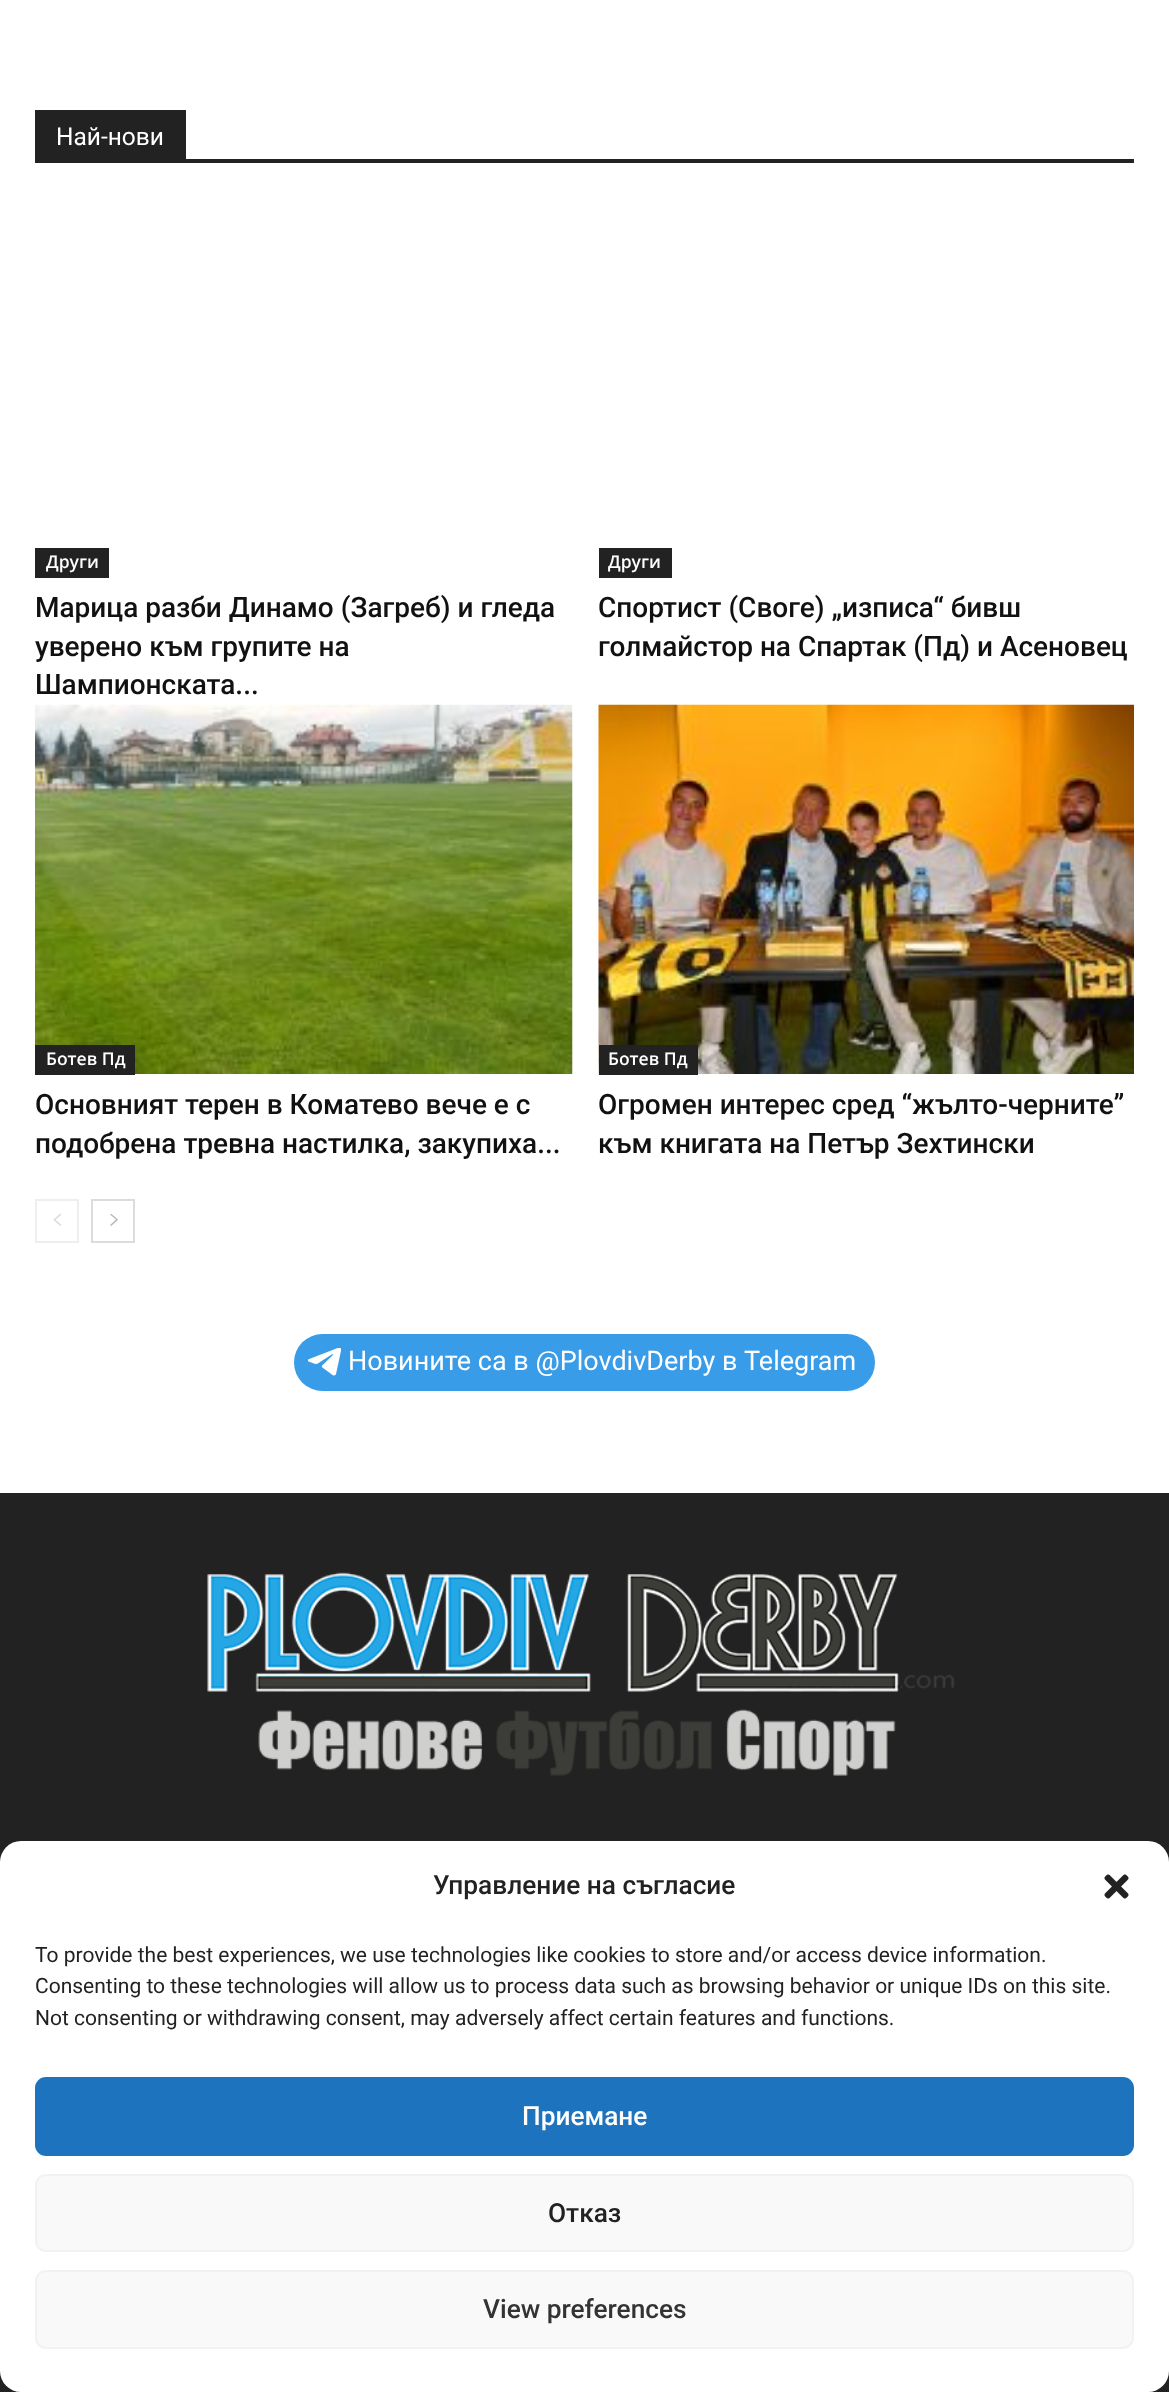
async function draw(canvas) {
  canvas.width = 1169
  canvas.height = 2392
  const ctx = canvas.getContext('2d')
  ctx.miterLimit = 4
  ctx.fontKerning = 'normal'
  async function loadImage(src) {
    const img = new Image()
    img.src = src
    await img.decode()
    return img
  }

  ctx.fillStyle = '#fff'
  ctx.fillRect(0, 0, 1169, 2392)
  ctx.fillStyle = '#222'
  ctx.fillRect(35, 159, 1099, 4)
  ctx.fillRect(35, 110, 151, 49)
  ctx.font = '24.5px "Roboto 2"'
  ctx.fillStyle = '#fff'
  ctx.fillText('Най-нови', 56, 145)
  ctx.fillStyle = '#222'
  ctx.fillRect(35, 548, 74, 30)
  ctx.font = '600 17.5px Open Sans'
  ctx.fillStyle = '#fff'
  ctx.fillText('Други', 46, 568)
  ctx.font = '500 28px Roboto'
  ctx.fillStyle = '#111'
  ctx.fillText('Марица разби Динамо (Загреб) и гледа', 35, 617)
  ctx.fillText('уверено към групите на', 35, 656)
  ctx.fillText('Шампионската...', 35, 694)
  ctx.fillStyle = '#222'
  ctx.fillRect(599, 548, 73, 30)
  ctx.font = '600 17.5px Open Sans'
  ctx.fillStyle = '#fff'
  ctx.fillText('Други', 608, 568)
  ctx.font = '500 28px Roboto'
  ctx.fillStyle = '#111'
  ctx.fillText('Спортист (Своге) „изписа“ бивш', 598, 617)
  ctx.fillText('голмайстор на Спартак (Пд) и Асеновец', 598, 656)
  ctx.drawImage(await loadImage('image0.png'), 35, 704, 538, 370)
  ctx.fillStyle = '#222'
  ctx.fillRect(35, 1045, 100, 30)
  ctx.font = '600 17.5px Open Sans'
  ctx.fillStyle = '#fff'
  ctx.fillText('Ботев Пд', 46, 1065)
  ctx.font = '500 28px Roboto'
  ctx.fillStyle = '#111'
  ctx.fillText('Основният терен в Коматево вече е с', 35, 1114)
  ctx.fillText('подобрена тревна настилка, закупиха...', 35, 1153)
  ctx.drawImage(await loadImage('image1.png'), 598, 704, 536, 370)
  ctx.fillStyle = '#222'
  ctx.fillRect(599, 1045, 99, 30)
  ctx.font = '600 17.5px Open Sans'
  ctx.fillStyle = '#fff'
  ctx.fillText('Ботев Пд', 608, 1065)
  ctx.font = '500 28px Roboto'
  ctx.fillStyle = '#111'
  ctx.fillText('Огромен интерес сред “жълто-черните”', 598, 1114)
  ctx.fillText('към книгата на Петър Зехтински', 598, 1153)
  ctx.strokeStyle = '#eee'
  ctx.lineWidth = 2
  ctx.strokeRect(36, 1200, 42, 42)
  ctx.drawImage(await loadImage('image2.png'), 53, 1213, 9, 13)
  ctx.strokeStyle = '#dcdcdc'
  ctx.strokeRect(92, 1200, 42, 42)
  ctx.drawImage(await loadImage('image3.png'), 110, 1213, 8, 13)
  ctx.fillStyle = '#389ce9'
  ctx.beginPath()
  ctx.roundRect(294, 1334, 581, 57, 28.5)
  ctx.fill()
  ctx.drawImage(await loadImage('image4.png'), 308, 1348, 33, 28)
  ctx.font = '27px Roboto'
  ctx.fillStyle = '#fff'
  ctx.fillText('Новините са в @PlovdivDerby в Telegram', 348, 1370)
  ctx.fillStyle = '#222'
  ctx.fillRect(0, 1493, 1169, 899)
  ctx.drawImage(await loadImage('image5.png'), 207, 1572, 748, 204)
  ctx.fillStyle = '#fff'
  ctx.beginPath()
  ctx.roundRect(0, 1841, 1169, 551, 21)
  ctx.fill()
  ctx.font = '500 26.25px Roboto'
  ctx.fillStyle = '#222'
  ctx.fillText('Управление на съгласие', 433, 1894)
  ctx.drawImage(await loadImage('image6.png'), 1104, 1874, 25, 25)
  ctx.font = '21px "Roboto 2"'
  ctx.fillText('To provide the best experiences, we use technologies like cookies to store and/or access device information.', 35, 1962)
  ctx.fillText('Consenting to these technologies will allow us to process data such as browsing behavior or unique IDs on this site.', 35, 1993)
  ctx.fillText('Not consenting or withdrawing consent, may adversely affect certain features and functions.', 35, 2025)
  ctx.fillStyle = '#1e73be'
  ctx.beginPath()
  ctx.roundRect(36, 2078, 1097, 77, 10)
  ctx.fill()
  ctx.strokeStyle = '#1e73be'
  ctx.stroke()
  ctx.font = '500 26.25px Roboto'
  ctx.fillStyle = '#fff'
  ctx.fillText('Приемане', 522, 2125)
  ctx.fillStyle = '#f9f9f9'
  ctx.beginPath()
  ctx.roundRect(36, 2175, 1097, 76, 10)
  ctx.fill()
  ctx.strokeStyle = '#f2f2f2'
  ctx.stroke()
  ctx.fillStyle = '#222'
  ctx.fillText('Отказ', 548, 2222)
  ctx.fillStyle = '#f9f9f9'
  ctx.beginPath()
  ctx.roundRect(36, 2271, 1097, 77, 10)
  ctx.fill()
  ctx.stroke()
  ctx.fillStyle = '#333'
  ctx.fillText('View preferences', 483, 2318)
}

draw(document.querySelector('canvas'))
